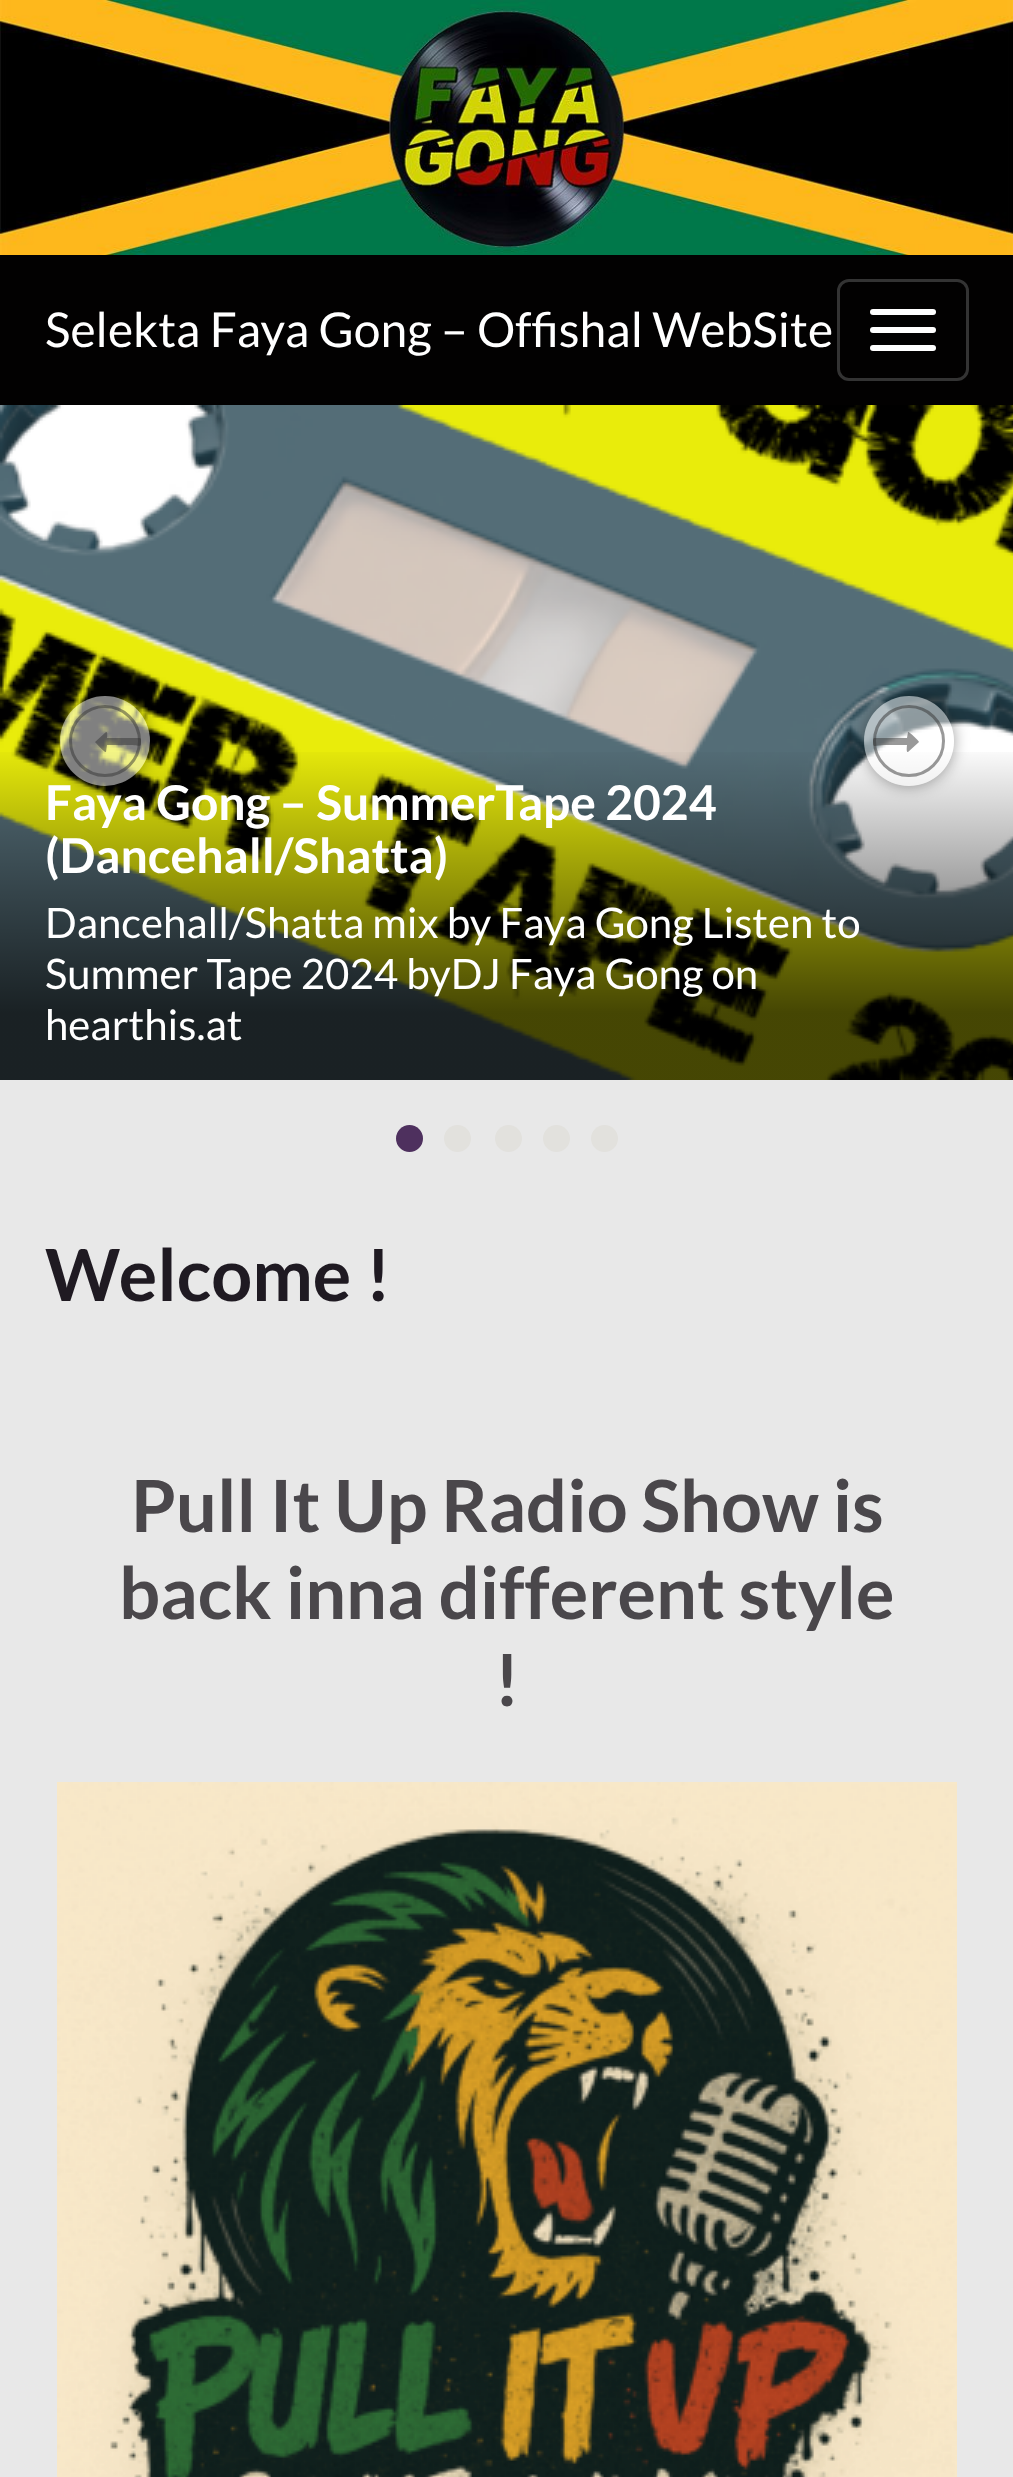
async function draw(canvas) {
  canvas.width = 1013
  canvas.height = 2477
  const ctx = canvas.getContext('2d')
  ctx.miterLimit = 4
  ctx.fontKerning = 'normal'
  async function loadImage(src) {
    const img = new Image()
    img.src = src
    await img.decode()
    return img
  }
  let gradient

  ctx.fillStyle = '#e8e8e8'
  ctx.fillRect(0, 0, 1013, 2477)
  ctx.drawImage(await loadImage('image0.png'), 0, 0, 1013, 255)
  ctx.fillStyle = '#020101'
  ctx.fillRect(0, 255, 1013, 150)
  ctx.font = '48px Lato'
  ctx.fillStyle = '#fff'
  ctx.fillText('Selekta Faya Gong – Offishal WebSite', 45, 347)
  ctx.beginPath()
  ctx.roundRect(838.5, 280.5, 129, 99, 10.5)
  ctx.strokeStyle = '#333'
  ctx.lineWidth = 3
  ctx.stroke()
  ctx.beginPath()
  ctx.roundRect(870, 309, 66, 6, 3)
  ctx.fill()
  ctx.beginPath()
  ctx.roundRect(870, 327, 66, 6, 3)
  ctx.fill()
  ctx.beginPath()
  ctx.roundRect(870, 345, 66, 6, 3)
  ctx.fill()
  ctx.fillRect(2, 405, 1011, 490)
  ctx.drawImage(await loadImage('image1.png'), 0, 405, 1013, 675)
  gradient = ctx.createLinearGradient(507, 1080, 507, 744)
  gradient.addColorStop(0.2, '#000000b3')
  gradient.addColorStop(1, '#00000000')
  ctx.fillStyle = gradient
  ctx.fillRect(0, 752, 1013, 328)
  ctx.save()
  ctx.beginPath()
  ctx.moveTo(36, 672)
  ctx.lineTo(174, 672)
  ctx.lineTo(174, 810)
  ctx.lineTo(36, 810)
  ctx.closePath()
  ctx.moveTo(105, 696)
  ctx.bezierCurveTo(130, 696, 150, 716, 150, 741)
  ctx.bezierCurveTo(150, 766, 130, 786, 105, 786)
  ctx.bezierCurveTo(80, 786, 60, 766, 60, 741)
  ctx.bezierCurveTo(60, 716, 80, 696, 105, 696)
  ctx.closePath()
  ctx.clip('evenodd')
  ctx.fillStyle = '#00000061'
  ctx.filter = 'blur(7.5px)'
  ctx.beginPath()
  ctx.roundRect(60, 696, 90, 90, 45)
  ctx.fill()
  ctx.filter = 'none'
  ctx.restore()
  ctx.font = 'bold 48px Lato'
  ctx.fillStyle = '#fff'
  ctx.fillText('Faya Gong – SummerTape 2024', 45, 820)
  ctx.fillStyle = '#ffffff80'
  ctx.beginPath()
  ctx.arc(105, 741, 45, 0, 2 * Math.PI)
  ctx.fill()
  ctx.beginPath()
  ctx.arc(105, 741, 34.5, 0, 2 * Math.PI)
  ctx.strokeStyle = '#33333380'
  ctx.stroke()
  ctx.fillStyle = '#33333380'
  ctx.beginPath()
  ctx.moveTo(141, 739)
  ctx.bezierCurveTo(141, 749, 142, 745, 129, 745)
  ctx.lineTo(107, 745)
  ctx.lineTo(106, 752)
  ctx.bezierCurveTo(105, 753, 95, 742, 95, 742)
  ctx.lineTo(106, 732)
  ctx.bezierCurveTo(108, 731, 107, 738, 107, 738)
  ctx.lineTo(140, 738)
  ctx.closePath()
  ctx.fill()
  ctx.save()
  ctx.beginPath()
  ctx.moveTo(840, 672)
  ctx.lineTo(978, 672)
  ctx.lineTo(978, 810)
  ctx.lineTo(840, 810)
  ctx.closePath()
  ctx.moveTo(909, 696)
  ctx.bezierCurveTo(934, 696, 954, 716, 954, 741)
  ctx.bezierCurveTo(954, 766, 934, 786, 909, 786)
  ctx.bezierCurveTo(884, 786, 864, 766, 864, 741)
  ctx.bezierCurveTo(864, 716, 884, 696, 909, 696)
  ctx.closePath()
  ctx.clip('evenodd')
  ctx.fillStyle = '#00000061'
  ctx.filter = 'blur(7.5px)'
  ctx.beginPath()
  ctx.roundRect(864, 696, 90, 90, 45)
  ctx.fill()
  ctx.filter = 'none'
  ctx.restore()
  ctx.fillStyle = '#ffffff80'
  ctx.beginPath()
  ctx.arc(909, 741, 45, 0, 2 * Math.PI)
  ctx.fill()
  ctx.beginPath()
  ctx.arc(909, 741, 34.5, 0, 2 * Math.PI)
  ctx.stroke()
  ctx.fillStyle = '#33333380'
  ctx.beginPath()
  ctx.moveTo(919, 742)
  ctx.lineTo(908, 752)
  ctx.bezierCurveTo(906, 753, 907, 746, 907, 745)
  ctx.lineTo(885, 745)
  ctx.bezierCurveTo(874, 745, 873, 749, 873, 741)
  ctx.bezierCurveTo(873, 737, 874, 738, 879, 738)
  ctx.lineTo(907, 738)
  ctx.lineTo(908, 732)
  ctx.bezierCurveTo(909, 731, 919, 741, 919, 742)
  ctx.closePath()
  ctx.fill()
  ctx.fillStyle = '#fff'
  ctx.fillText('(Dancehall/Shatta)', 45, 873)
  ctx.font = '42px Lato'
  ctx.fillText('Dancehall/Shatta mix by Faya Gong Listen to', 45, 938)
  ctx.fillText('Summer Tape 2024 byDJ Faya Gong on', 45, 989)
  ctx.fillText('hearthis.at', 45, 1040)
  ctx.fillStyle = '#4e305e'
  ctx.beginPath()
  ctx.arc(409.5, 1138.5, 13.5, 0, 2 * Math.PI)
  ctx.fill()
  ctx.fillStyle = '#e2e1dd'
  ctx.beginPath()
  ctx.arc(457.5, 1138.5, 13.5, 0, 2 * Math.PI)
  ctx.fill()
  ctx.beginPath()
  ctx.arc(508.5, 1138.5, 13.5, 0, 2 * Math.PI)
  ctx.fill()
  ctx.beginPath()
  ctx.arc(556.5, 1138.5, 13.5, 0, 2 * Math.PI)
  ctx.fill()
  ctx.beginPath()
  ctx.arc(604.5, 1138.5, 13.5, 0, 2 * Math.PI)
  ctx.fill()
  ctx.font = 'bold 72px Lato'
  ctx.fillStyle = '#1f1a22'
  ctx.fillText('Welcome !', 45, 1301)
  ctx.fillStyle = '#4a474b'
  ctx.fillText('Pull It Up Radio Show is', 131, 1532)
  ctx.fillText('back inna different style', 119, 1619)
  ctx.fillText('!', 494, 1706)
  ctx.drawImage(await loadImage('image2.png'), 57, 1782, 900, 695)
}

draw(document.querySelector('canvas'))
